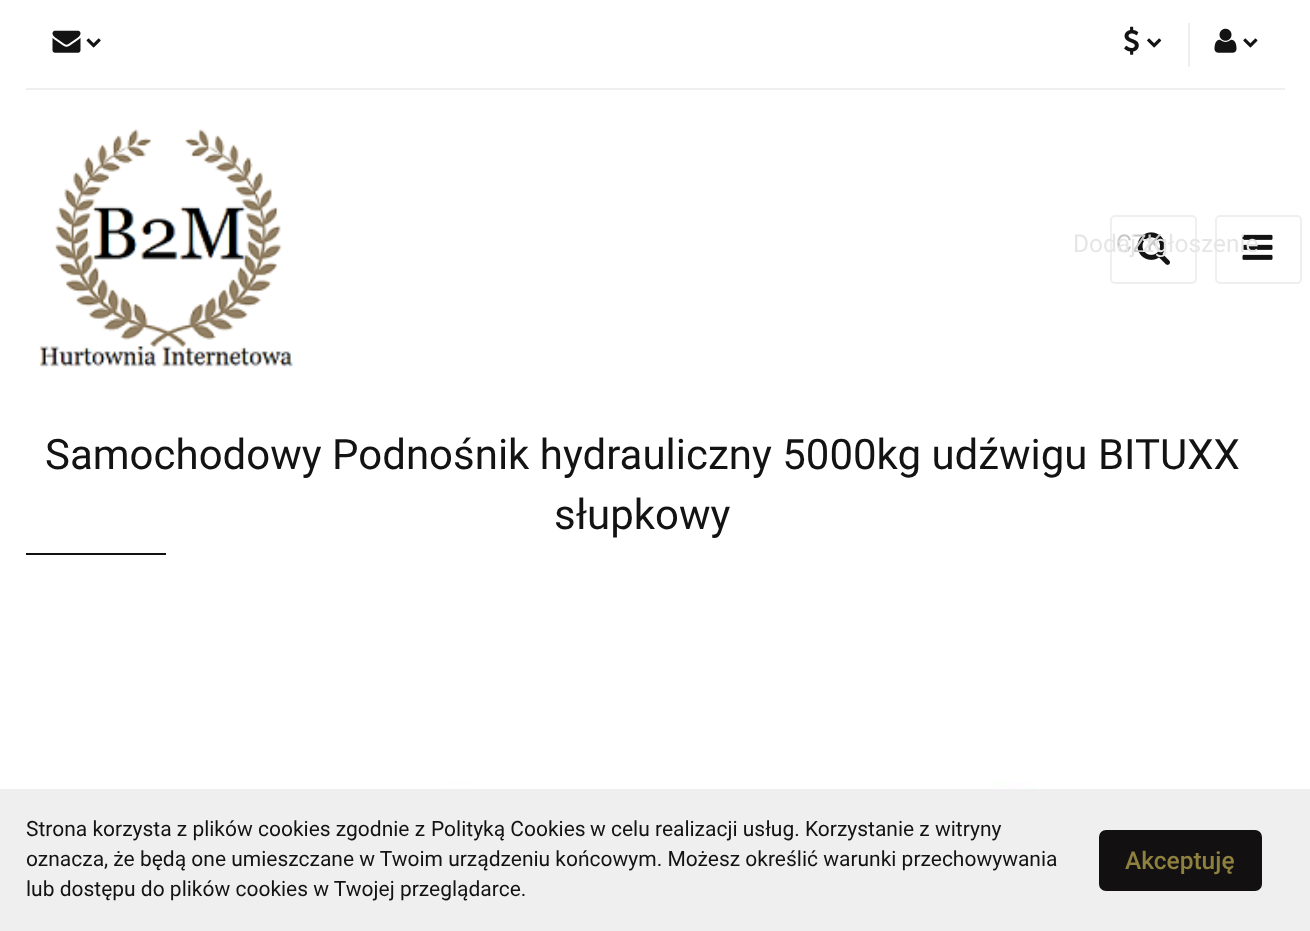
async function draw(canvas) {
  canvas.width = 1310
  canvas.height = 931
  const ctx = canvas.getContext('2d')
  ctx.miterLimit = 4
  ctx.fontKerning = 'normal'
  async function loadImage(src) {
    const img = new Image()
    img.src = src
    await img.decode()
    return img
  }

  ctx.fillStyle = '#fff'
  ctx.fillRect(0, 0, 1310, 931)
  ctx.drawImage(await loadImage('image0.png'), 39, 129, 254, 238)
  ctx.beginPath()
  ctx.roundRect(1111, 216, 85, 67, 4)
  ctx.strokeStyle = '#efefef'
  ctx.lineWidth = 2
  ctx.stroke()
  ctx.drawImage(await loadImage('image1.png'), 1137, 232, 33, 33)
  ctx.beginPath()
  ctx.roundRect(1216, 216, 85, 67, 4)
  ctx.stroke()
  ctx.drawImage(await loadImage('image2.png'), 1242, 234, 31, 26)
  ctx.fillStyle = '#efefef'
  ctx.fillRect(26, 88, 1259, 2)
  ctx.drawImage(await loadImage('image3.png'), 52, 30, 29, 23)
  ctx.drawImage(await loadImage('image4.png'), 86, 38, 15, 10)
  ctx.fillRect(1188, 23, 2, 44)
  ctx.drawImage(await loadImage('image5.png'), 1214, 28, 23, 25)
  ctx.drawImage(await loadImage('image6.png'), 1243, 38, 15, 10)
  ctx.font = '24.5px Roboto'
  ctx.fillStyle = '#c7c7c7'
  ctx.fillText('CZK', 1116, 252)
  ctx.fillStyle = '#e6e6e6'
  ctx.fillText('Dodaj zgłoszenie', 1073, 252)
  ctx.drawImage(await loadImage('image7.png'), 1124, 26, 15, 29)
  ctx.drawImage(await loadImage('image8.png'), 1147, 38, 15, 10)
  ctx.font = '42px Roboto'
  ctx.fillStyle = '#131313'
  ctx.fillText('Samochodowy Podnośnik hydrauliczny 5000kg udźwigu BITUXX', 45, 469)
  ctx.fillText('słupkowy', 554, 529)
  ctx.fillStyle = '#121010'
  ctx.fillRect(26, 553, 140, 2)
  ctx.drawImage(await loadImage('image9.png'), 70, 781, 1043, 8)
  ctx.fillStyle = '#efefef'
  ctx.fillRect(0, 789, 1310, 142)
  ctx.font = '21px Roboto'
  ctx.fillStyle = '#131313'
  ctx.fillText('Strona korzysta z plików cookies zgodnie z', 26, 836)
  ctx.fillText('Polityką Cookies', 431, 836)
  ctx.fillText('w celu realizacji usług. Korzystanie z witryny', 590, 836)
  ctx.fillText('oznacza, że będą one umieszczane w Twoim urządzeniu końcowym. Możesz określić warunki przechowywania', 26, 866)
  ctx.fillText('lub dostępu do plików cookies w Twojej przeglądarce.', 26, 896)
  ctx.fillStyle = '#121010'
  ctx.beginPath()
  ctx.roundRect(1101.5, 832.5, 158, 56, 4.5)
  ctx.fill()
  ctx.strokeStyle = '#121010'
  ctx.lineWidth = 5
  ctx.stroke()
  ctx.font = '500 24.5px Roboto'
  ctx.fillStyle = '#8e803f'
  ctx.fillText('Akceptuję', 1125, 869)
}

draw(document.querySelector('canvas'))
